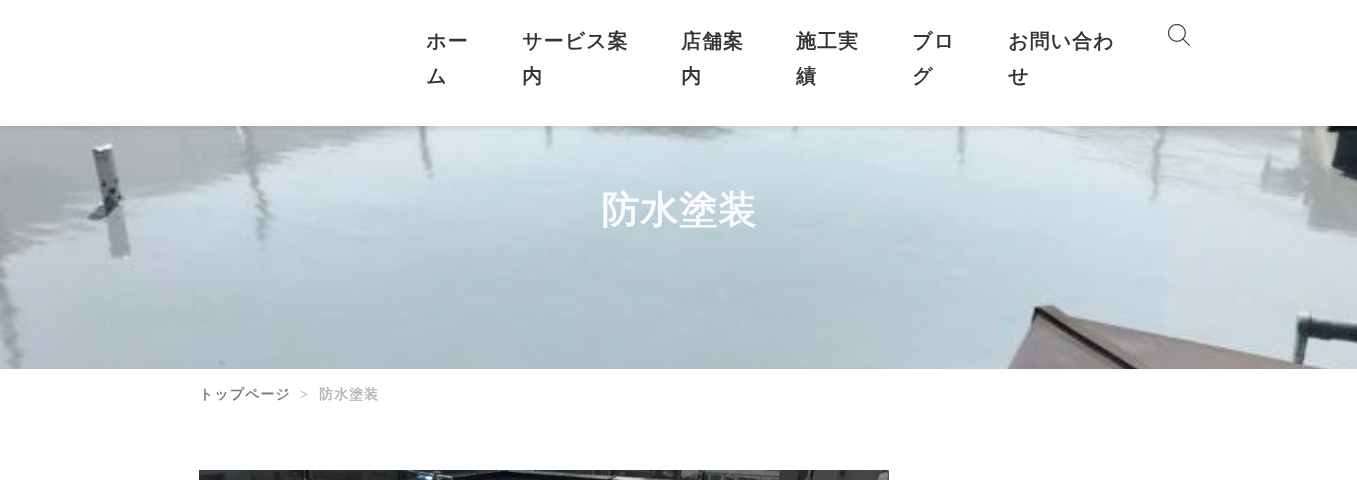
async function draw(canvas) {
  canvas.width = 1357
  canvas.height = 480
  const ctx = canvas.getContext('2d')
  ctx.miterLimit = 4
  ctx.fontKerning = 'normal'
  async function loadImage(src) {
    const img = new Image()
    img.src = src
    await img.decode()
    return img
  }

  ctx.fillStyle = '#fff'
  ctx.fillRect(0, 0, 1357, 480)
  ctx.drawImage(await loadImage('image1.png'), 0, 126, 1357, 243)
  ctx.fillStyle = '#00000012'
  ctx.filter = 'blur(2px)'
  ctx.beginPath()
  ctx.rect(0, 3, 1357, 126)
  ctx.fill()
  ctx.filter = 'none'
  ctx.fillStyle = '#fff'
  ctx.fillRect(0, 1, 1357, 125)
  ctx.letterSpacing = '1px'
  ctx.font = 'bold 20px WenQuanYi Zen Hei'
  ctx.fillStyle = '#343434'
  ctx.fillText('ホー', 426, 48)
  ctx.fillText('ム', 426, 83)
  ctx.fillText('サービス案', 522, 48)
  ctx.fillText('内', 522, 83)
  ctx.fillText('店舗案', 681, 48)
  ctx.fillText('内', 681, 83)
  ctx.fillText('施工実', 796, 48)
  ctx.fillText('績', 796, 83)
  ctx.fillText('ブロ', 912, 48)
  ctx.fillText('グ', 912, 83)
  ctx.fillText('お問い合わ', 1008, 48)
  ctx.fillText('せ', 1008, 83)
  ctx.drawImage(await loadImage('image0.png'), 1168, 24, 22, 22)
  ctx.font = 'bold 38px WenQuanYi Zen Hei'
  ctx.fillStyle = '#fafafa'
  ctx.fillText('防水塗装', 601, 223)
  ctx.font = 'bold 14px WenQuanYi Zen Hei'
  ctx.fillStyle = '#787878'
  ctx.fillText('トップページ', 199, 399)
  ctx.font = 'bold 14px Liberation Serif'
  ctx.fillStyle = '#b4b4b4'
  ctx.fillText('>', 300, 399)
  ctx.font = 'bold 14px WenQuanYi Zen Hei'
  ctx.fillText('防水塗装', 319, 399)
  ctx.drawImage(await loadImage('image2.png'), 199, 470, 690, 10)
}

draw(document.querySelector('canvas'))
